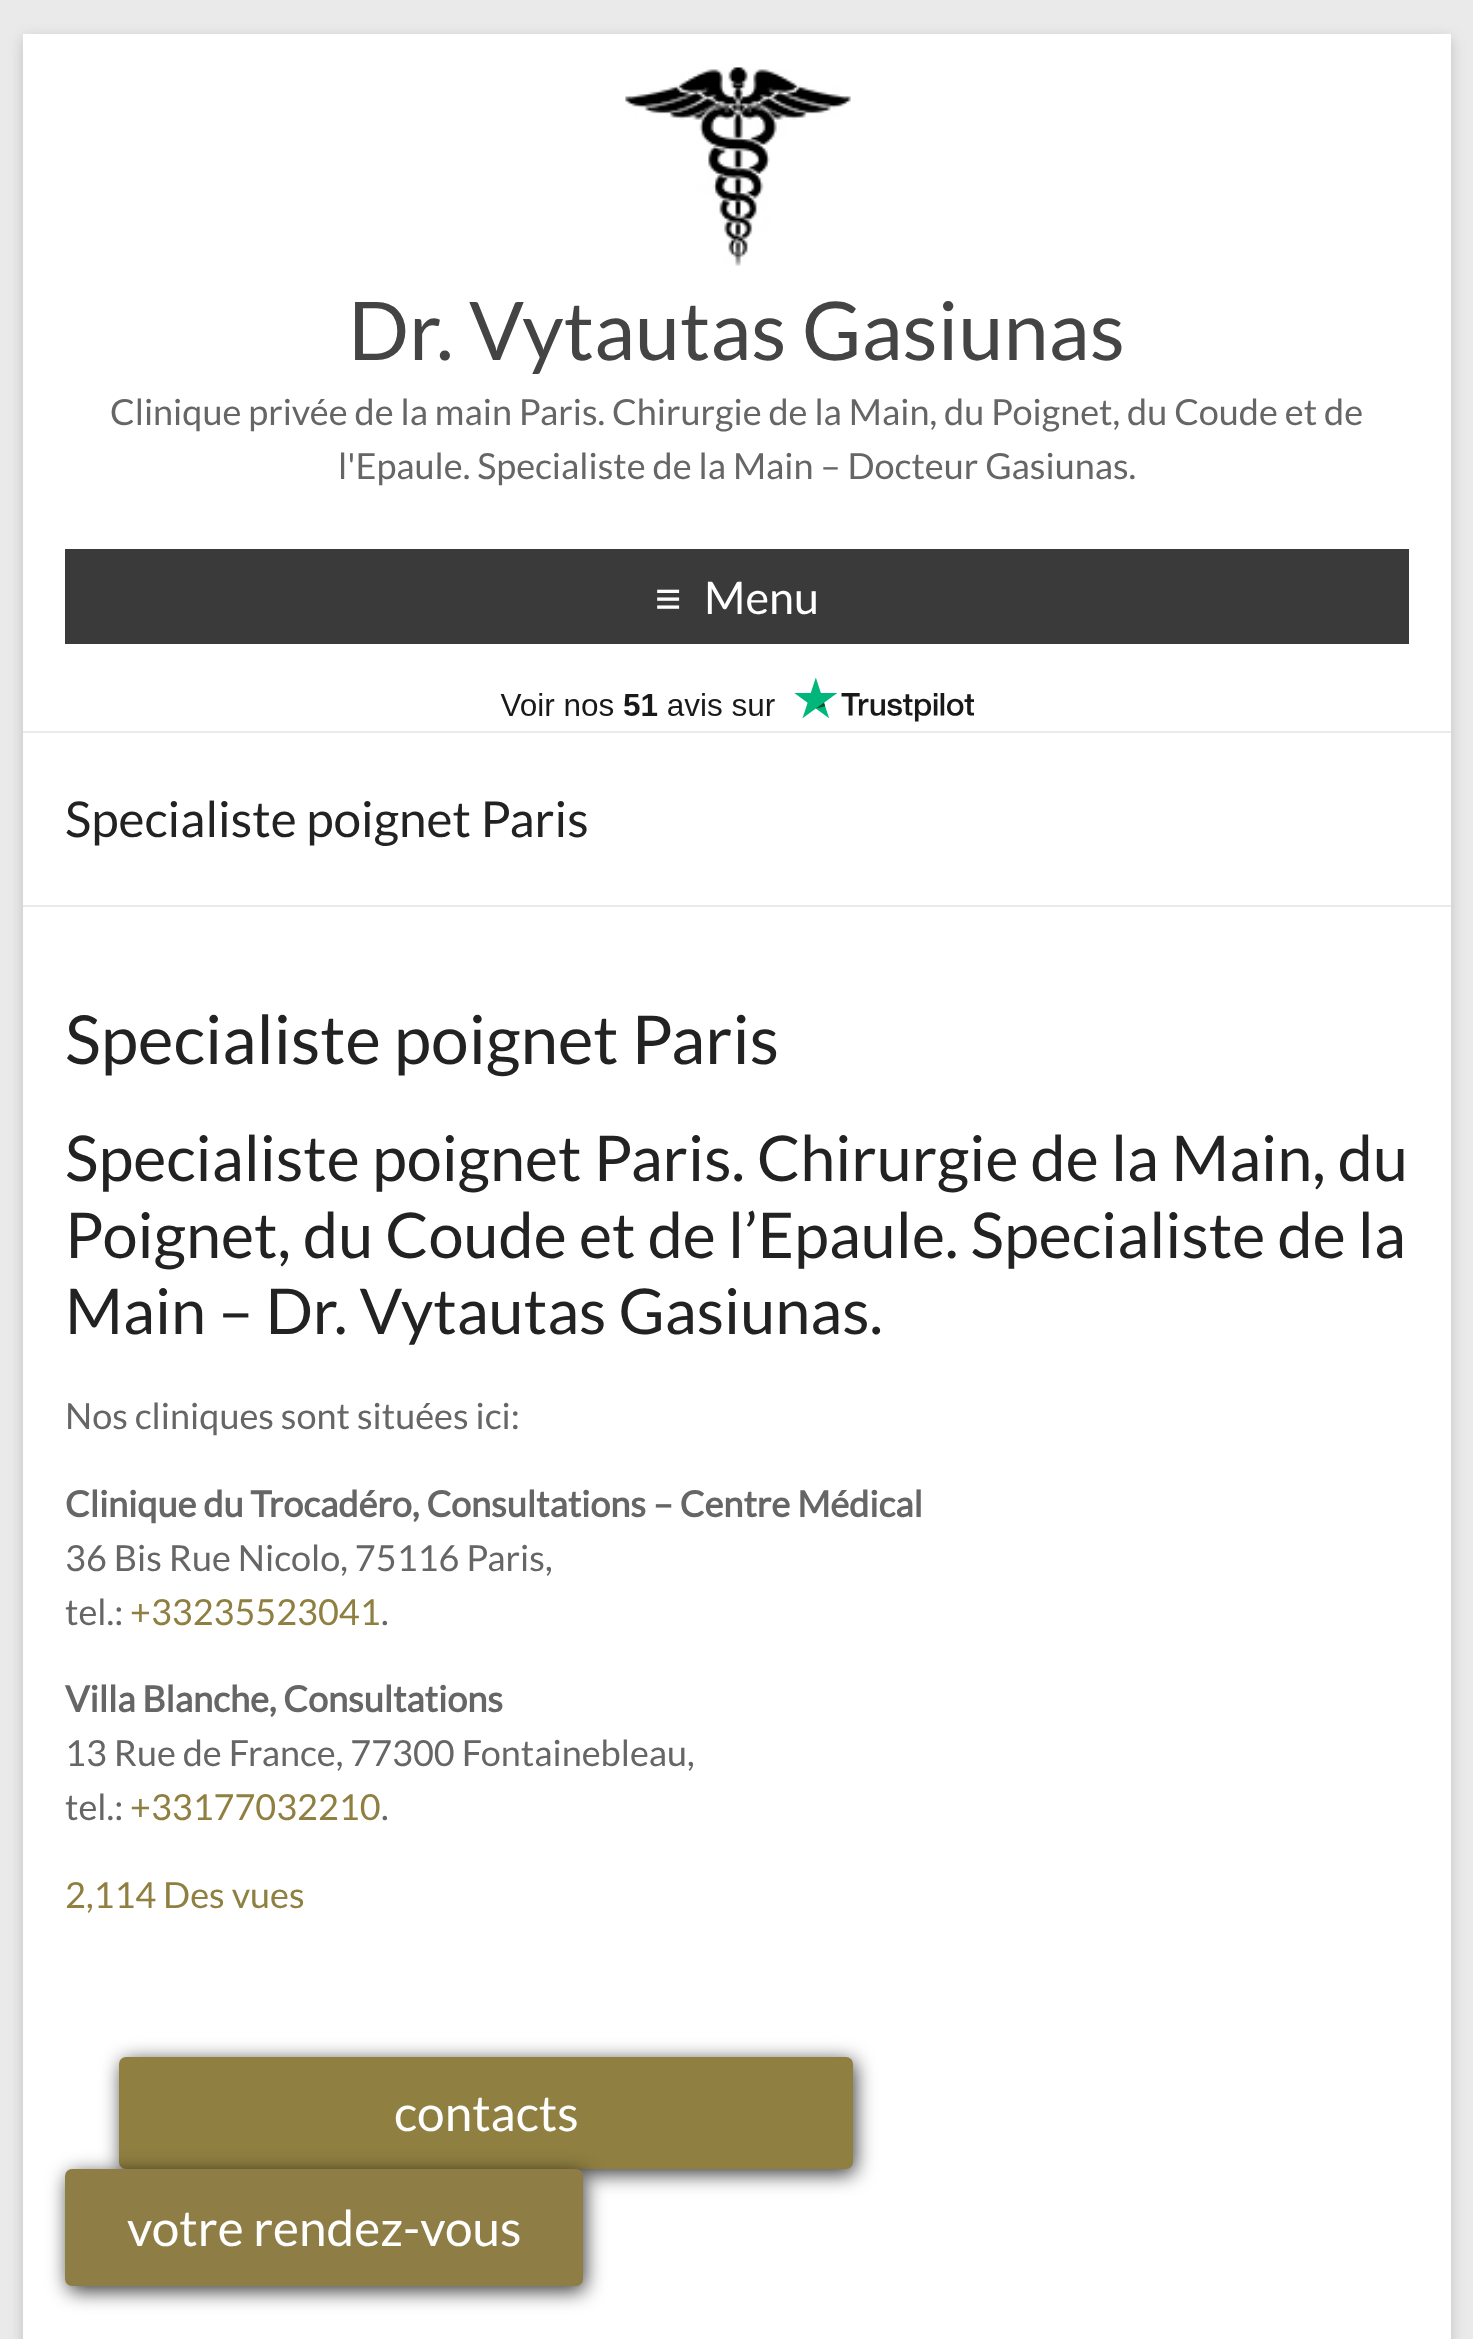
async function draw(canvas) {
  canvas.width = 1473
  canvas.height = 2339
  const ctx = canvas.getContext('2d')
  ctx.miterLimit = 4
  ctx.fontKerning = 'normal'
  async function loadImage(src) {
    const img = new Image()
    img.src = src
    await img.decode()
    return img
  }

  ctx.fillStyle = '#eaeaea'
  ctx.fillRect(0, 0, 1473, 2339)
  ctx.fillStyle = '#6464644d'
  ctx.filter = 'blur(7px)'
  ctx.beginPath()
  ctx.rect(23, 38, 1428, 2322)
  ctx.fill()
  ctx.filter = 'none'
  ctx.fillStyle = '#fff'
  ctx.fillRect(23, 34, 1428, 2305)
  ctx.fillStyle = '#eaeaea'
  ctx.fillRect(23, 731, 1428, 2)
  ctx.drawImage(await loadImage('image0.png'), 625, 67, 226, 199)
  ctx.font = '81px Lato'
  ctx.fillStyle = '#444'
  ctx.fillText('Dr. Vytautas Gasiunas', 348, 360)
  ctx.font = '36px Lato'
  ctx.fillStyle = '#666'
  ctx.fillText('Clinique privée de la main Paris. Chirurgie de la Main, du Poignet, du Coude et de', 110, 425)
  ctx.fillText('l\'Epaule. Specialiste de la Main – Docteur Gasiunas.', 338, 479)
  ctx.fillStyle = '#3a3a3a'
  ctx.fillRect(65, 549, 1344, 95)
  ctx.font = '45px Liberation Sans'
  ctx.fillStyle = '#fff'
  ctx.fillText('≡', 655, 614)
  ctx.font = '45px Lato'
  ctx.fillText('Menu', 704, 614)
  ctx.drawImage(await loadImage('image1.png'), 500, 677, 474, 45)
  ctx.fillStyle = '#eaeaea'
  ctx.fillRect(23, 905, 1428, 2)
  ctx.font = '49.5px Lato'
  ctx.fillStyle = '#222'
  ctx.fillText('Specialiste poignet Paris', 65, 837)
  ctx.font = '67.5px Lato'
  ctx.fillText('Specialiste poignet Paris', 65, 1064)
  ctx.font = '63px Lato'
  ctx.fillText('Specialiste poignet Paris. Chirurgie de la Main, du', 65, 1181)
  ctx.fillText('Poignet, du Coude et de l’Epaule. Specialiste de la', 65, 1258)
  ctx.fillText('Main – Dr. Vytautas Gasiunas.', 65, 1334)
  ctx.font = '36px Lato'
  ctx.fillStyle = '#666'
  ctx.fillText('Nos cliniques sont situées ici:', 65, 1429)
  ctx.font = 'bold 36px Lato'
  ctx.fillText('Clinique du Trocadéro, Consultations – Centre Médical', 65, 1517)
  ctx.font = '36px Lato'
  ctx.fillText('36 Bis Rue Nicolo, 75116 Paris,', 65, 1571)
  ctx.fillText('tel.:', 65, 1625)
  ctx.fillStyle = '#8f7f41'
  ctx.fillText('+33235523041', 130, 1625)
  ctx.fillStyle = '#666'
  ctx.fillText('.', 381, 1625)
  ctx.font = 'bold 36px Lato'
  ctx.fillText('Villa Blanche, Consultations', 65, 1712)
  ctx.font = '36px Lato'
  ctx.fillText('13 Rue de France, 77300 Fontainebleau,', 65, 1766)
  ctx.fillText('tel.:', 65, 1820)
  ctx.fillStyle = '#8f7f41'
  ctx.fillText('+33177032210', 130, 1820)
  ctx.fillStyle = '#666'
  ctx.fillText('.', 381, 1820)
  ctx.fillStyle = '#8f7f41'
  ctx.fillText('2,114 Des vues', 65, 1908)
  ctx.fillStyle = '#000000c7'
  ctx.filter = 'blur(10px)'
  ctx.beginPath()
  ctx.roundRect(122, 2061, 733, 113, 7)
  ctx.fill()
  ctx.filter = 'none'
  ctx.fillStyle = '#8f7f41'
  ctx.beginPath()
  ctx.roundRect(119, 2057, 734, 112, 7)
  ctx.fill()
  ctx.font = '49.5px Lato'
  ctx.fillStyle = '#fff'
  ctx.fillText('contacts', 394, 2131)
  ctx.fillStyle = '#000000c7'
  ctx.filter = 'blur(10px)'
  ctx.beginPath()
  ctx.roundRect(68, 2174, 517, 117, 7)
  ctx.fill()
  ctx.filter = 'none'
  ctx.fillStyle = '#8e7e45'
  ctx.beginPath()
  ctx.roundRect(65, 2169, 518, 117, 7)
  ctx.fill()
  ctx.fillStyle = '#fff'
  ctx.fillText('votre rendez-vous', 127, 2246)
}

draw(document.querySelector('canvas'))
